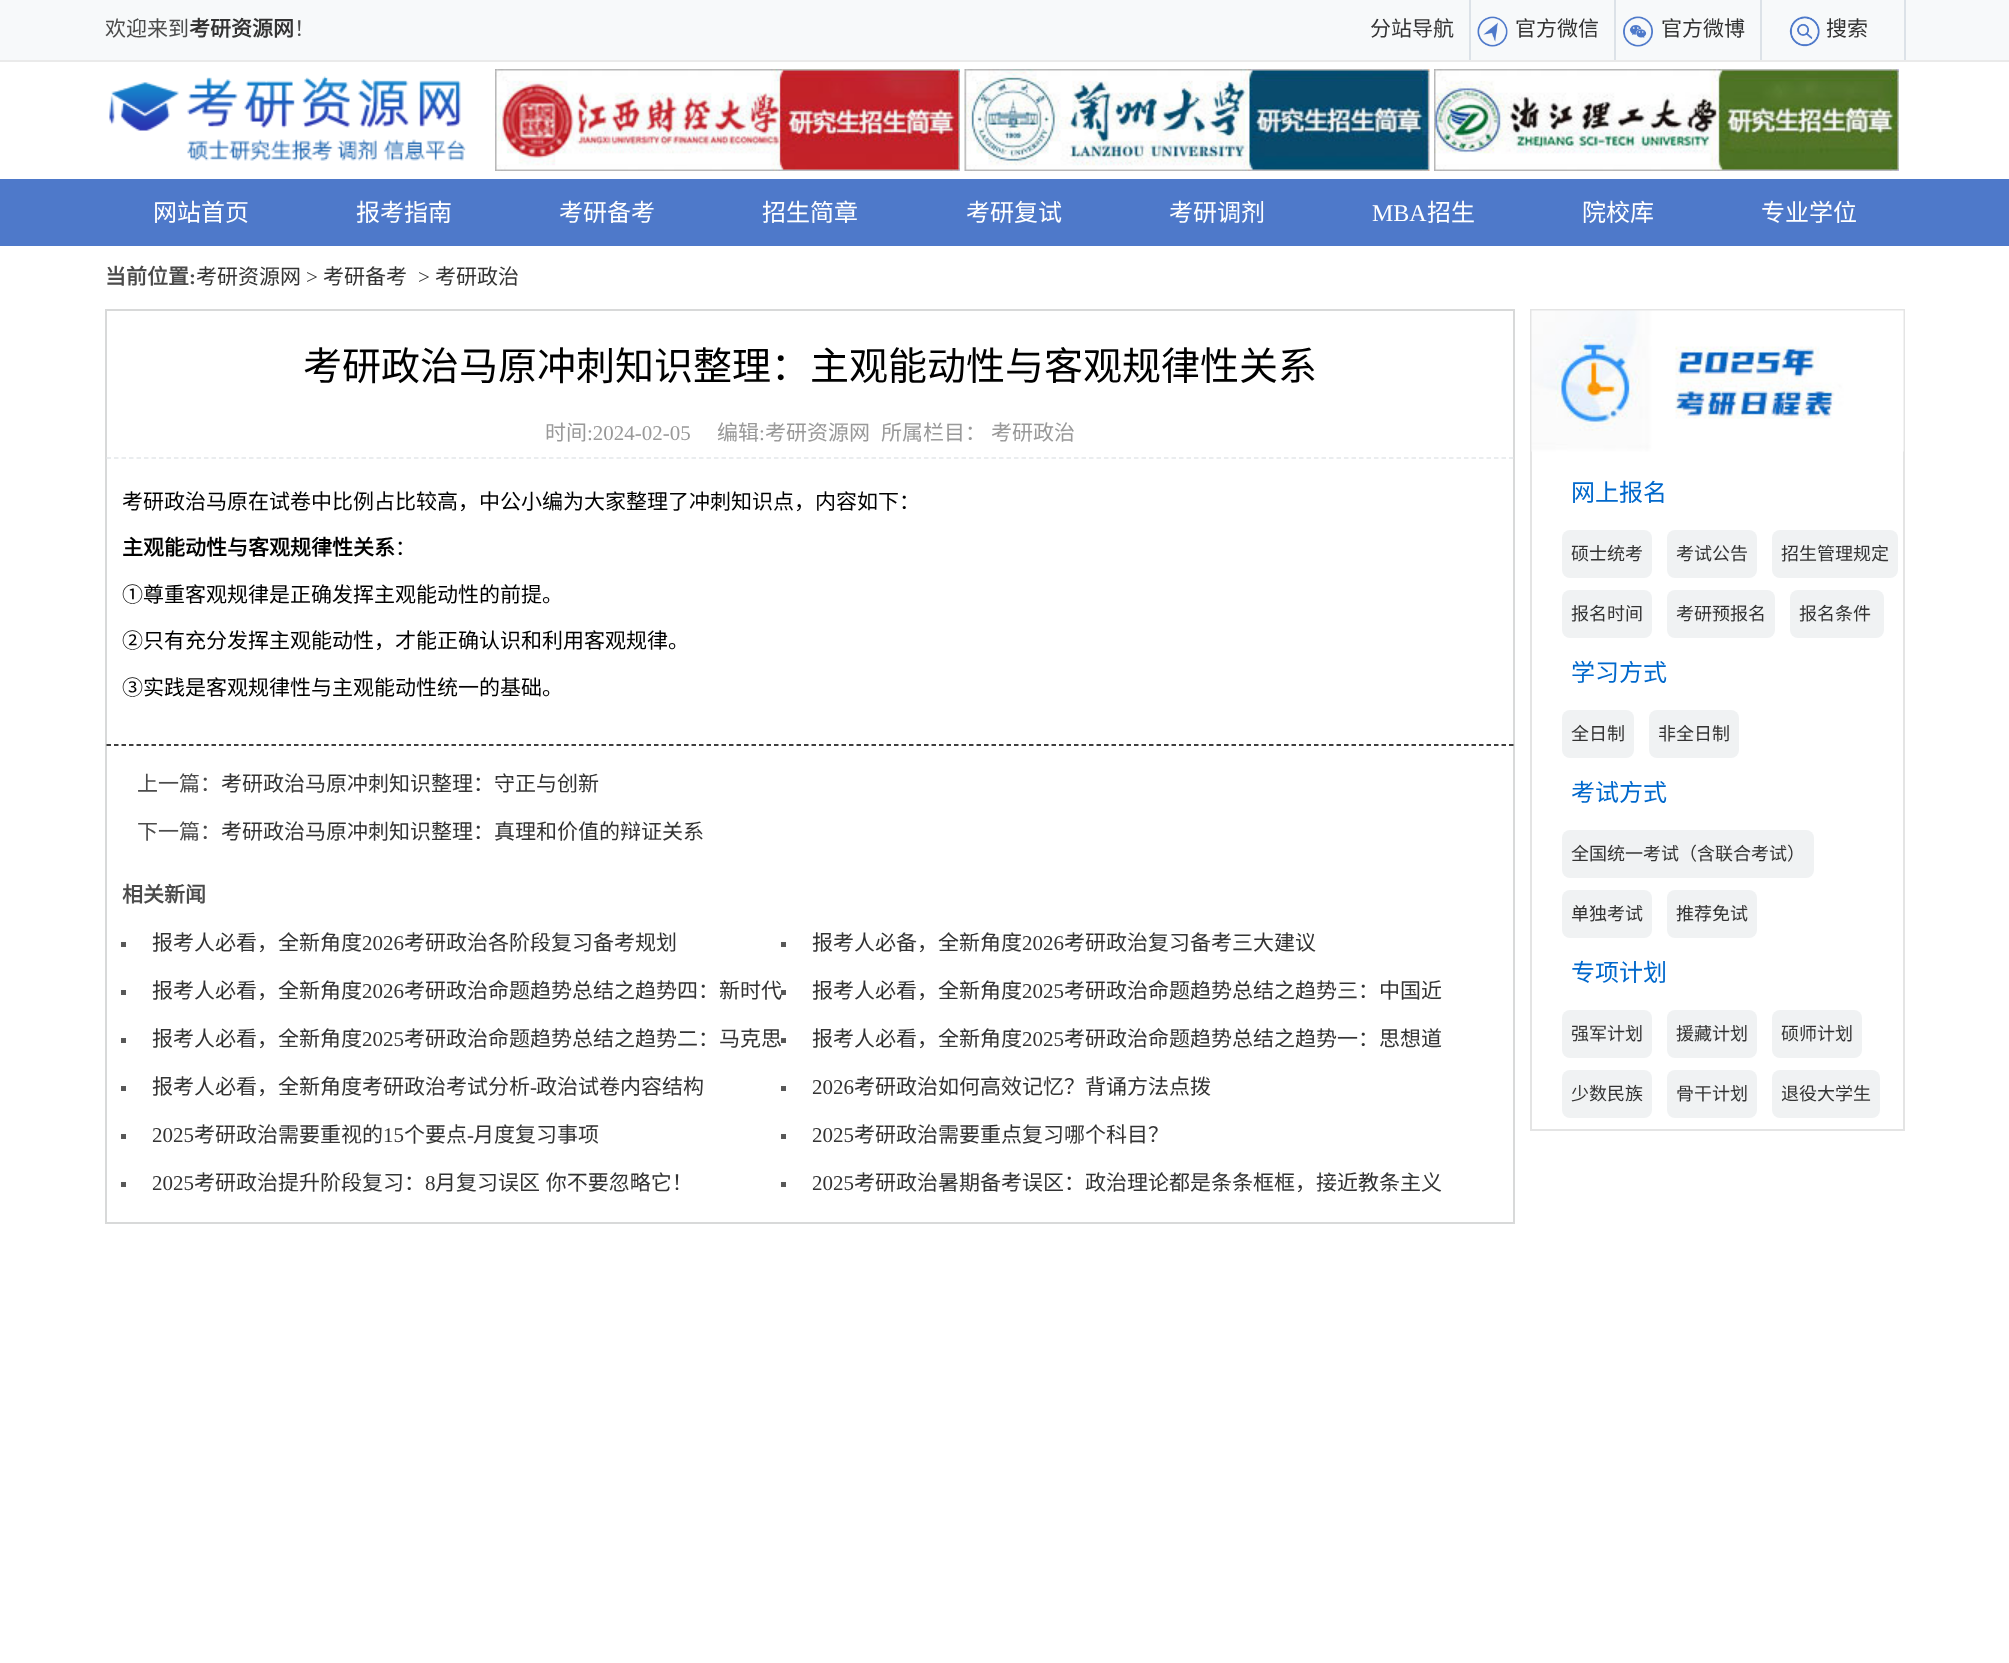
async function draw(canvas) {
  canvas.width = 2009
  canvas.height = 1663
  const ctx = canvas.getContext('2d')
  ctx.miterLimit = 4
  ctx.fontKerning = 'normal'
  async function loadImage(src) {
    const img = new Image()
    img.src = src
    await img.decode()
    return img
  }

  ctx.fillStyle = '#fff'
  ctx.fillRect(0, 0, 2009, 1663)
  ctx.fillStyle = '#f7f9fa'
  ctx.fillRect(0, 0, 2009, 60)
  ctx.fillStyle = '#eaeaea'
  ctx.fillRect(0, 60, 2009, 2)
  ctx.font = '21px Noto Sans CJK SC'
  ctx.fillStyle = '#4b4b4b'
  ctx.fillText('欢迎来到', 105, 36)
  ctx.font = 'bold 21px Noto Sans CJK SC'
  ctx.fillStyle = '#333'
  ctx.fillText('考研资源网', 189, 36)
  ctx.font = '21px Noto Sans CJK SC'
  ctx.fillStyle = '#4b4b4b'
  ctx.fillText('！', 294, 36)
  ctx.fillStyle = '#dce2e8'
  ctx.fillRect(1469, 0, 2, 60)
  ctx.fillStyle = '#333'
  ctx.fillText('分站导航', 1370, 36)
  ctx.drawImage(await loadImage('image0.png'), 1477, 16, 31, 31)
  ctx.fillStyle = '#dce2e8'
  ctx.fillRect(1614, 0, 2, 60)
  ctx.fillStyle = '#333'
  ctx.fillText('官方微信', 1515, 36)
  ctx.drawImage(await loadImage('image1.png'), 1623, 16, 30, 31)
  ctx.fillStyle = '#dce2e8'
  ctx.fillRect(1760, 0, 2, 60)
  ctx.fillStyle = '#333'
  ctx.fillText('官方微博', 1661, 36)
  ctx.drawImage(await loadImage('image2.png'), 1789, 16, 31, 31)
  ctx.fillStyle = '#dce2e8'
  ctx.fillRect(1904, 0, 2, 60)
  ctx.fillStyle = '#333'
  ctx.fillText('搜索', 1826, 36)
  ctx.drawImage(await loadImage('image3.png'), 109, 76, 357, 85)
  ctx.drawImage(await loadImage('image4.png'), 495, 69, 465, 102)
  ctx.drawImage(await loadImage('image5.png'), 964, 69, 466, 102)
  ctx.drawImage(await loadImage('image6.png'), 1434, 69, 465, 102)
  ctx.fillStyle = '#4e79ca'
  ctx.fillRect(0, 179, 2009, 67)
  ctx.font = '24px Noto Sans CJK SC'
  ctx.fillStyle = '#fff'
  ctx.fillText('网站首页', 153, 221)
  ctx.fillText('报考指南', 356, 221)
  ctx.fillText('考研备考', 559, 221)
  ctx.fillText('招生简章', 762, 221)
  ctx.fillText('考研复试', 966, 221)
  ctx.fillText('考研调剂', 1169, 221)
  ctx.font = '24px Liberation Serif'
  ctx.fillText('MBA', 1372, 221)
  ctx.font = '24px Noto Sans CJK SC'
  ctx.fillText('招生', 1427, 221)
  ctx.fillText('院校库', 1582, 221)
  ctx.fillText('专业学位', 1761, 221)
  ctx.font = 'bold 21px Noto Sans CJK SC'
  ctx.fillStyle = '#4b4b4b'
  ctx.fillText('当前位置', 105, 284)
  ctx.font = 'bold 21px Liberation Serif'
  ctx.fillText(':', 189, 284)
  ctx.font = '21px Noto Sans CJK SC'
  ctx.fillStyle = '#333'
  ctx.fillText('考研资源网', 196, 284)
  ctx.font = '21px Liberation Serif'
  ctx.fillText('>', 306, 284)
  ctx.font = '21px Noto Sans CJK SC'
  ctx.fillText('考研备考', 323, 284)
  ctx.font = '21px Liberation Serif'
  ctx.fillText('>', 418, 284)
  ctx.font = '21px Noto Sans CJK SC'
  ctx.fillText('考研政治', 435, 284)
  ctx.strokeStyle = '#d8d9d9'
  ctx.lineWidth = 2
  ctx.strokeRect(106, 310, 1408, 913)
  ctx.font = '39px Noto Sans CJK SC'
  ctx.fillStyle = '#000'
  ctx.fillText('考研政治马原冲刺知识整理：主观能动性与客观规律性关系', 303, 380)
  ctx.beginPath()
  ctx.moveTo(106.5, 458)
  ctx.lineTo(1513.5, 458)
  ctx.strokeStyle = '#e3e7ea'
  ctx.lineWidth = 1.5
  ctx.setLineDash([4.5, 3])
  ctx.stroke()
  ctx.font = '21px Noto Sans CJK SC'
  ctx.fillStyle = '#999'
  ctx.fillText('时间', 545, 440)
  ctx.font = '21px Liberation Serif'
  ctx.fillText(':2024-02-05', 587, 440)
  ctx.font = '21px Noto Sans CJK SC'
  ctx.fillText('编辑', 717, 440)
  ctx.font = '21px Liberation Serif'
  ctx.fillText(':', 759, 440)
  ctx.font = '21px Noto Sans CJK SC'
  ctx.fillText('考研资源网', 765, 440)
  ctx.fillText('所属栏目：', 881, 440)
  ctx.fillText('考研政治', 991, 440)
  ctx.fillStyle = '#000'
  ctx.fillText('考研政治马原在试卷中比例占比较高，中公小编为大家整理了冲刺知识点，内容如下：', 122, 509)
  ctx.font = 'bold 21px Noto Sans CJK SC'
  ctx.fillText('主观能动性与客观规律性关系', 122, 555)
  ctx.font = '21px Noto Sans CJK SC'
  ctx.fillText('：', 395, 555)
  ctx.fillText('①尊重客观规律是正确发挥主观能动性的前提。', 122, 602)
  ctx.fillText('②只有充分发挥主观能动性，才能正确认识和利用客观规律。', 122, 648)
  ctx.fillText('③实践是客观规律性与主观能动性统一的基础。', 122, 695)
  ctx.beginPath()
  ctx.moveTo(106.5, 745)
  ctx.lineTo(1513.5, 745)
  ctx.strokeStyle = '#000'
  ctx.stroke()
  ctx.fillStyle = '#4b4b4b'
  ctx.fillText('上一篇：', 137, 791)
  ctx.fillStyle = '#333'
  ctx.fillText('考研政治马原冲刺知识整理：守正与创新', 221, 791)
  ctx.fillStyle = '#4b4b4b'
  ctx.fillText('下一篇：', 137, 839)
  ctx.fillStyle = '#333'
  ctx.fillText('考研政治马原冲刺知识整理：真理和价值的辩证关系', 221, 839)
  ctx.font = 'bold 21px Noto Sans CJK SC'
  ctx.fillStyle = '#4b4b4b'
  ctx.fillText('相关新闻', 122, 902)
  ctx.fillStyle = '#585858'
  ctx.fillRect(121, 942, 5, 5)
  ctx.font = '21px Noto Sans CJK SC'
  ctx.fillStyle = '#333'
  ctx.fillText('报考人必看，全新角度', 152, 950)
  ctx.font = '21px Liberation Serif'
  ctx.fillText('2026', 362, 950)
  ctx.font = '21px Noto Sans CJK SC'
  ctx.fillText('考研政治各阶段复习备考规划', 404, 950)
  ctx.fillStyle = '#585858'
  ctx.fillRect(781, 942, 5, 5)
  ctx.fillStyle = '#333'
  ctx.fillText('报考人必备，全新角度', 812, 950)
  ctx.font = '21px Liberation Serif'
  ctx.fillText('2026', 1022, 950)
  ctx.font = '21px Noto Sans CJK SC'
  ctx.fillText('考研政治复习备考三大建议', 1064, 950)
  ctx.fillStyle = '#585858'
  ctx.fillRect(121, 990, 5, 5)
  ctx.fillStyle = '#333'
  ctx.fillText('报考人必看，全新角度', 152, 998)
  ctx.font = '21px Liberation Serif'
  ctx.fillText('2026', 362, 998)
  ctx.font = '21px Noto Sans CJK SC'
  ctx.fillText('考研政治命题趋势总结之趋势四：新时代', 404, 998)
  ctx.fillStyle = '#585858'
  ctx.fillRect(781, 990, 5, 5)
  ctx.fillStyle = '#333'
  ctx.fillText('报考人必看，全新角度', 812, 998)
  ctx.font = '21px Liberation Serif'
  ctx.fillText('2025', 1022, 998)
  ctx.font = '21px Noto Sans CJK SC'
  ctx.fillText('考研政治命题趋势总结之趋势三：中国近', 1064, 998)
  ctx.fillStyle = '#585858'
  ctx.fillRect(121, 1038, 5, 5)
  ctx.fillStyle = '#333'
  ctx.fillText('报考人必看，全新角度', 152, 1046)
  ctx.font = '21px Liberation Serif'
  ctx.fillText('2025', 362, 1046)
  ctx.font = '21px Noto Sans CJK SC'
  ctx.fillText('考研政治命题趋势总结之趋势二：马克思', 404, 1046)
  ctx.fillStyle = '#585858'
  ctx.fillRect(781, 1038, 5, 5)
  ctx.fillStyle = '#333'
  ctx.fillText('报考人必看，全新角度', 812, 1046)
  ctx.font = '21px Liberation Serif'
  ctx.fillText('2025', 1022, 1046)
  ctx.font = '21px Noto Sans CJK SC'
  ctx.fillText('考研政治命题趋势总结之趋势一：思想道', 1064, 1046)
  ctx.fillStyle = '#585858'
  ctx.fillRect(121, 1086, 5, 5)
  ctx.fillStyle = '#333'
  ctx.fillText('报考人必看，全新角度考研政治考试分析', 152, 1094)
  ctx.font = '21px Liberation Serif'
  ctx.fillText('-', 530, 1094)
  ctx.font = '21px Noto Sans CJK SC'
  ctx.fillText('政治试卷内容结构', 536, 1094)
  ctx.fillStyle = '#585858'
  ctx.fillRect(781, 1086, 5, 5)
  ctx.font = '21px Liberation Serif'
  ctx.fillStyle = '#333'
  ctx.fillText('2026', 812, 1094)
  ctx.font = '21px Noto Sans CJK SC'
  ctx.fillText('考研政治如何高效记忆？背诵方法点拨', 854, 1094)
  ctx.fillStyle = '#585858'
  ctx.fillRect(121, 1134, 5, 5)
  ctx.font = '21px Liberation Serif'
  ctx.fillStyle = '#333'
  ctx.fillText('2025', 152, 1142)
  ctx.font = '21px Noto Sans CJK SC'
  ctx.fillText('考研政治需要重视的', 194, 1142)
  ctx.font = '21px Liberation Serif'
  ctx.fillText('15', 383, 1142)
  ctx.font = '21px Noto Sans CJK SC'
  ctx.fillText('个要点', 404, 1142)
  ctx.font = '21px Liberation Serif'
  ctx.fillText('-', 467, 1142)
  ctx.font = '21px Noto Sans CJK SC'
  ctx.fillText('月度复习事项', 473, 1142)
  ctx.fillStyle = '#585858'
  ctx.fillRect(781, 1134, 5, 5)
  ctx.font = '21px Liberation Serif'
  ctx.fillStyle = '#333'
  ctx.fillText('2025', 812, 1142)
  ctx.font = '21px Noto Sans CJK SC'
  ctx.fillText('考研政治需要重点复习哪个科目？', 854, 1142)
  ctx.fillStyle = '#585858'
  ctx.fillRect(121, 1182, 5, 5)
  ctx.font = '21px Liberation Serif'
  ctx.fillStyle = '#333'
  ctx.fillText('2025', 152, 1190)
  ctx.font = '21px Noto Sans CJK SC'
  ctx.fillText('考研政治提升阶段复习：', 194, 1190)
  ctx.font = '21px Liberation Serif'
  ctx.fillText('8', 425, 1190)
  ctx.wordSpacing = '1px'
  ctx.font = '21px Noto Sans CJK SC'
  ctx.fillText('月复习误区 你不要忽略它！', 435, 1190)
  ctx.fillStyle = '#585858'
  ctx.fillRect(781, 1182, 5, 5)
  ctx.wordSpacing = '0px'
  ctx.font = '21px Liberation Serif'
  ctx.fillStyle = '#333'
  ctx.fillText('2025', 812, 1190)
  ctx.font = '21px Noto Sans CJK SC'
  ctx.fillText('考研政治暑期备考误区：政治理论都是条条框框，接近教条主义', 854, 1190)
  ctx.strokeStyle = '#e4e4e4'
  ctx.lineWidth = 2
  ctx.setLineDash([])
  ctx.strokeRect(1531, 310, 373, 820)
  ctx.drawImage(await loadImage('image7.png'), 1531, 310, 373, 142)
  ctx.font = '24px Noto Sans CJK SC'
  ctx.fillStyle = '#0068cc'
  ctx.fillText('网上报名', 1571, 501)
  ctx.fillStyle = '#f0f2f3'
  ctx.beginPath()
  ctx.roundRect(1562, 530, 90, 48, 8)
  ctx.fill()
  ctx.font = '18px Noto Sans CJK SC'
  ctx.fillStyle = '#333'
  ctx.fillText('硕士统考', 1571, 560)
  ctx.fillStyle = '#f0f2f3'
  ctx.beginPath()
  ctx.roundRect(1667, 530, 90, 48, 8)
  ctx.fill()
  ctx.fillStyle = '#333'
  ctx.fillText('考试公告', 1676, 560)
  ctx.fillStyle = '#f0f2f3'
  ctx.beginPath()
  ctx.roundRect(1772, 530, 126, 48, 8)
  ctx.fill()
  ctx.fillStyle = '#333'
  ctx.fillText('招生管理规定', 1781, 560)
  ctx.fillStyle = '#f0f2f3'
  ctx.beginPath()
  ctx.roundRect(1562, 590, 90, 48, 8)
  ctx.fill()
  ctx.fillStyle = '#333'
  ctx.fillText('报名时间', 1571, 620)
  ctx.fillStyle = '#f0f2f3'
  ctx.beginPath()
  ctx.roundRect(1667, 590, 108, 48, 8)
  ctx.fill()
  ctx.fillStyle = '#333'
  ctx.fillText('考研预报名', 1676, 620)
  ctx.fillStyle = '#f0f2f3'
  ctx.beginPath()
  ctx.roundRect(1790, 590, 94, 48, 8)
  ctx.fill()
  ctx.fillStyle = '#333'
  ctx.fillText('报名条件', 1799, 620)
  ctx.font = '24px Noto Sans CJK SC'
  ctx.fillStyle = '#0068cc'
  ctx.fillText('学习方式', 1571, 681)
  ctx.fillStyle = '#f0f2f3'
  ctx.beginPath()
  ctx.roundRect(1562, 710, 72, 48, 8)
  ctx.fill()
  ctx.font = '18px Noto Sans CJK SC'
  ctx.fillStyle = '#333'
  ctx.fillText('全日制', 1571, 740)
  ctx.fillStyle = '#f0f2f3'
  ctx.beginPath()
  ctx.roundRect(1649, 710, 90, 48, 8)
  ctx.fill()
  ctx.fillStyle = '#333'
  ctx.fillText('非全日制', 1658, 740)
  ctx.font = '24px Noto Sans CJK SC'
  ctx.fillStyle = '#0068cc'
  ctx.fillText('考试方式', 1571, 801)
  ctx.fillStyle = '#f0f2f3'
  ctx.beginPath()
  ctx.roundRect(1562, 830, 252, 48, 8)
  ctx.fill()
  ctx.font = '18px Noto Sans CJK SC'
  ctx.fillStyle = '#333'
  ctx.fillText('全国统一考试（含联合考试）', 1571, 860)
  ctx.fillStyle = '#f0f2f3'
  ctx.beginPath()
  ctx.roundRect(1562, 890, 90, 48, 8)
  ctx.fill()
  ctx.fillStyle = '#333'
  ctx.fillText('单独考试', 1571, 920)
  ctx.fillStyle = '#f0f2f3'
  ctx.beginPath()
  ctx.roundRect(1667, 890, 90, 48, 8)
  ctx.fill()
  ctx.fillStyle = '#333'
  ctx.fillText('推荐免试', 1676, 920)
  ctx.font = '24px Noto Sans CJK SC'
  ctx.fillStyle = '#0068cc'
  ctx.fillText('专项计划', 1571, 981)
  ctx.fillStyle = '#f0f2f3'
  ctx.beginPath()
  ctx.roundRect(1562, 1010, 90, 48, 8)
  ctx.fill()
  ctx.font = '18px Noto Sans CJK SC'
  ctx.fillStyle = '#333'
  ctx.fillText('强军计划', 1571, 1040)
  ctx.fillStyle = '#f0f2f3'
  ctx.beginPath()
  ctx.roundRect(1667, 1010, 90, 48, 8)
  ctx.fill()
  ctx.fillStyle = '#333'
  ctx.fillText('援藏计划', 1676, 1040)
  ctx.fillStyle = '#f0f2f3'
  ctx.beginPath()
  ctx.roundRect(1772, 1010, 90, 48, 8)
  ctx.fill()
  ctx.fillStyle = '#333'
  ctx.fillText('硕师计划', 1781, 1040)
  ctx.fillStyle = '#f0f2f3'
  ctx.beginPath()
  ctx.roundRect(1562, 1070, 90, 48, 8)
  ctx.fill()
  ctx.fillStyle = '#333'
  ctx.fillText('少数民族', 1571, 1100)
  ctx.fillStyle = '#f0f2f3'
  ctx.beginPath()
  ctx.roundRect(1667, 1070, 90, 48, 8)
  ctx.fill()
  ctx.fillStyle = '#333'
  ctx.fillText('骨干计划', 1676, 1100)
  ctx.fillStyle = '#f0f2f3'
  ctx.beginPath()
  ctx.roundRect(1772, 1070, 108, 48, 8)
  ctx.fill()
  ctx.fillStyle = '#333'
  ctx.fillText('退役大学生', 1781, 1100)
}

draw(document.querySelector('canvas'))
